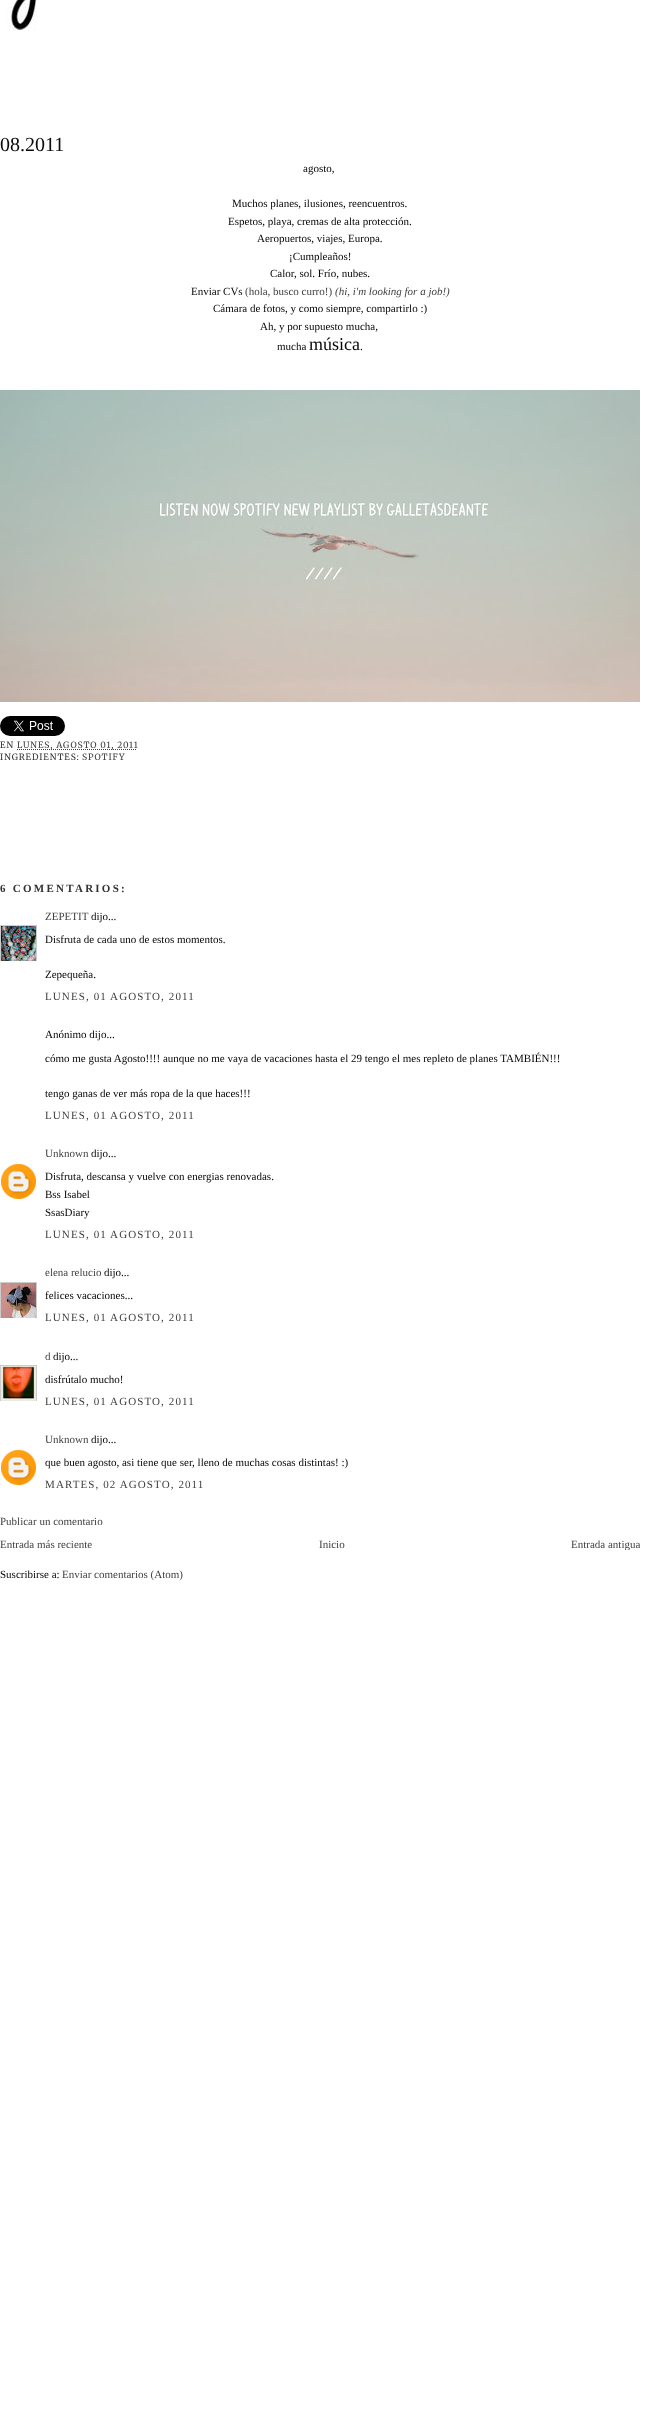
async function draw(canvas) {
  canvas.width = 649
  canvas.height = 2413
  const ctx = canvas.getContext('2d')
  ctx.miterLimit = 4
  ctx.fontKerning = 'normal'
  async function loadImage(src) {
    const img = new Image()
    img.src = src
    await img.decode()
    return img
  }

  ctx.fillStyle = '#fff'
  ctx.fillRect(0, 0, 649, 2413)
  ctx.drawImage(await loadImage('image0.png'), 6, 0, 31, 31)
  ctx.font = '20px Liberation Serif'
  ctx.fillStyle = '#0c0c0c'
  ctx.fillText('08.2011', 0, 151)
  ctx.font = '11px Liberation Serif'
  ctx.fillStyle = '#060606'
  ctx.fillText('agosto,', 303, 172)
  ctx.fillText('Muchos planes, ilusiones, reencuentros.', 232, 207)
  ctx.fillText('Espetos, playa, cremas de alta protección.', 228, 225)
  ctx.fillText('Aeropuertos, viajes, Europa.', 257, 242)
  ctx.fillText('¡Cumpleaños!', 289, 260)
  ctx.fillText('Calor, sol. Frío, nubes.', 270, 277)
  ctx.fillText('Enviar CVs', 191, 295)
  ctx.fillStyle = '#3f3f3f'
  ctx.fillText('(hola, busco curro!)', 245, 295)
  ctx.font = 'italic 11px Liberation Serif'
  ctx.fillText('(hi, i\'m looking for a job!)', 335, 295)
  ctx.font = '11px Liberation Serif'
  ctx.fillStyle = '#060606'
  ctx.fillText('Cámara de fotos, y como siempre, compartirlo :)', 213, 312)
  ctx.fillText('Ah, y por supuesto mucha,', 260, 330)
  ctx.fillText('mucha', 277, 350)
  ctx.font = '18px Liberation Serif'
  ctx.fillText('música', 309, 350)
  ctx.font = '11px Liberation Serif'
  ctx.fillText('.', 360, 350)
  ctx.drawImage(await loadImage('image1.png'), 0, 390, 640, 312)
  ctx.drawImage(await loadImage('image2.png'), 0, 716, 65, 20)
  ctx.letterSpacing = '0.9px'
  ctx.font = '300 8.6px Merriweather'
  ctx.fillStyle = '#333'
  ctx.fillText('EN', 0, 748)
  ctx.beginPath()
  ctx.moveTo(17, 749.5)
  ctx.lineTo(137, 749.5)
  ctx.strokeStyle = '#3f3f3f'
  ctx.setLineDash([1, 1])
  ctx.stroke()
  ctx.fillStyle = '#3f3f3f'
  ctx.fillText('LUNES, AGOSTO 01, 2011', 17, 748)
  ctx.fillStyle = '#333'
  ctx.fillText('INGREDIENTES:', 0, 760)
  ctx.fillStyle = '#3f3f3f'
  ctx.fillText('SPOTIFY', 82, 760)
  ctx.letterSpacing = '2.25px'
  ctx.font = 'bold 11px Liberation Serif'
  ctx.fillStyle = '#333'
  ctx.fillText('6 COMENTARIOS:', 0, 892)
  ctx.letterSpacing = '0px'
  ctx.font = '11px Liberation Serif'
  ctx.fillStyle = '#3f3f3f'
  ctx.fillText('ZEPETIT', 45, 920)
  ctx.fillStyle = '#060606'
  ctx.fillText('dijo...', 91, 920)
  ctx.save()
  ctx.beginPath()
  ctx.rect(0, 925, 37, 36)
  ctx.clip()
  ctx.strokeStyle = '#ccc'
  ctx.setLineDash([])
  ctx.strokeRect(0.5, 925.5, 36, 36)
  ctx.restore()
  ctx.drawImage(await loadImage('image3.png'), 1, 926, 35, 35)
  ctx.fillText('Disfruta de cada uno de estos momentos.', 45, 943)
  ctx.fillText('Zepequeña.', 45, 978)
  ctx.letterSpacing = '1.1px'
  ctx.fillStyle = '#3f3f3f'
  ctx.fillText('LUNES, 01 AGOSTO, 2011', 45, 1000)
  ctx.letterSpacing = '0px'
  ctx.fillStyle = '#060606'
  ctx.fillText('Anónimo dijo...', 45, 1038)
  ctx.fillText('cómo me gusta Agosto!!!! aunque no me vaya de vacaciones hasta el 29 tengo el mes repleto de planes TAMBIÉN!!!', 45, 1062)
  ctx.fillText('tengo ganas de ver más ropa de la que haces!!!', 45, 1097)
  ctx.letterSpacing = '1.1px'
  ctx.fillStyle = '#3f3f3f'
  ctx.fillText('LUNES, 01 AGOSTO, 2011', 45, 1119)
  ctx.letterSpacing = '0px'
  ctx.fillText('Unknown', 45, 1157)
  ctx.fillStyle = '#060606'
  ctx.fillText('dijo...', 91, 1157)
  ctx.drawImage(await loadImage('image4.png'), 1, 1164, 35, 35)
  ctx.fillText('Disfruta, descansa y vuelve con energias renovadas.', 45, 1180)
  ctx.fillText('Bss Isabel', 45, 1198)
  ctx.fillText('SsasDiary', 45, 1216)
  ctx.letterSpacing = '1.1px'
  ctx.fillStyle = '#3f3f3f'
  ctx.fillText('LUNES, 01 AGOSTO, 2011', 45, 1238)
  ctx.letterSpacing = '0px'
  ctx.fillText('elena relucio', 45, 1276)
  ctx.fillStyle = '#060606'
  ctx.fillText('dijo...', 104, 1276)
  ctx.save()
  ctx.beginPath()
  ctx.rect(0, 1282, 37, 36)
  ctx.clip()
  ctx.strokeStyle = '#ccc'
  ctx.setLineDash([])
  ctx.strokeRect(0.5, 1282.5, 36, 36)
  ctx.restore()
  ctx.drawImage(await loadImage('image5.png'), 1, 1283, 35, 35)
  ctx.fillText('felices vacaciones...', 45, 1299)
  ctx.letterSpacing = '1.1px'
  ctx.fillStyle = '#3f3f3f'
  ctx.fillText('LUNES, 01 AGOSTO, 2011', 45, 1321)
  ctx.letterSpacing = '0px'
  ctx.fillText('d', 45, 1360)
  ctx.fillStyle = '#060606'
  ctx.fillText('dijo...', 53, 1360)
  ctx.save()
  ctx.beginPath()
  ctx.rect(0, 1365, 37, 36)
  ctx.clip()
  ctx.strokeStyle = '#ccc'
  ctx.setLineDash([])
  ctx.strokeRect(0.5, 1365.5, 36, 36)
  ctx.restore()
  ctx.drawImage(await loadImage('image6.png'), 1, 1366, 35, 35)
  ctx.fillText('disfrútalo mucho!', 45, 1383)
  ctx.letterSpacing = '1.1px'
  ctx.fillStyle = '#3f3f3f'
  ctx.fillText('LUNES, 01 AGOSTO, 2011', 45, 1405)
  ctx.letterSpacing = '0px'
  ctx.fillText('Unknown', 45, 1443)
  ctx.fillStyle = '#060606'
  ctx.fillText('dijo...', 91, 1443)
  ctx.drawImage(await loadImage('image4.png'), 1, 1450, 35, 35)
  ctx.fillText('que buen agosto, asi tiene que ser, lleno de muchas cosas distintas! :)', 45, 1466)
  ctx.letterSpacing = '1.1px'
  ctx.fillStyle = '#3f3f3f'
  ctx.fillText('MARTES, 02 AGOSTO, 2011', 45, 1488)
  ctx.letterSpacing = '0px'
  ctx.fillText('Publicar un comentario', 0, 1525)
  ctx.fillText('Entrada más reciente', 0, 1548)
  ctx.fillText('Inicio', 319, 1548)
  ctx.save()
  ctx.beginPath()
  ctx.rect(0, 1538, 640, 12)
  ctx.clip()
  ctx.fillText('Entrada antigua', 571, 1548)
  ctx.restore()
  ctx.fillStyle = '#060606'
  ctx.fillText('Suscribirse a:', 0, 1578)
  ctx.fillStyle = '#3f3f3f'
  ctx.fillText('Enviar comentarios (Atom)', 62, 1578)
}

draw(document.querySelector('canvas'))
